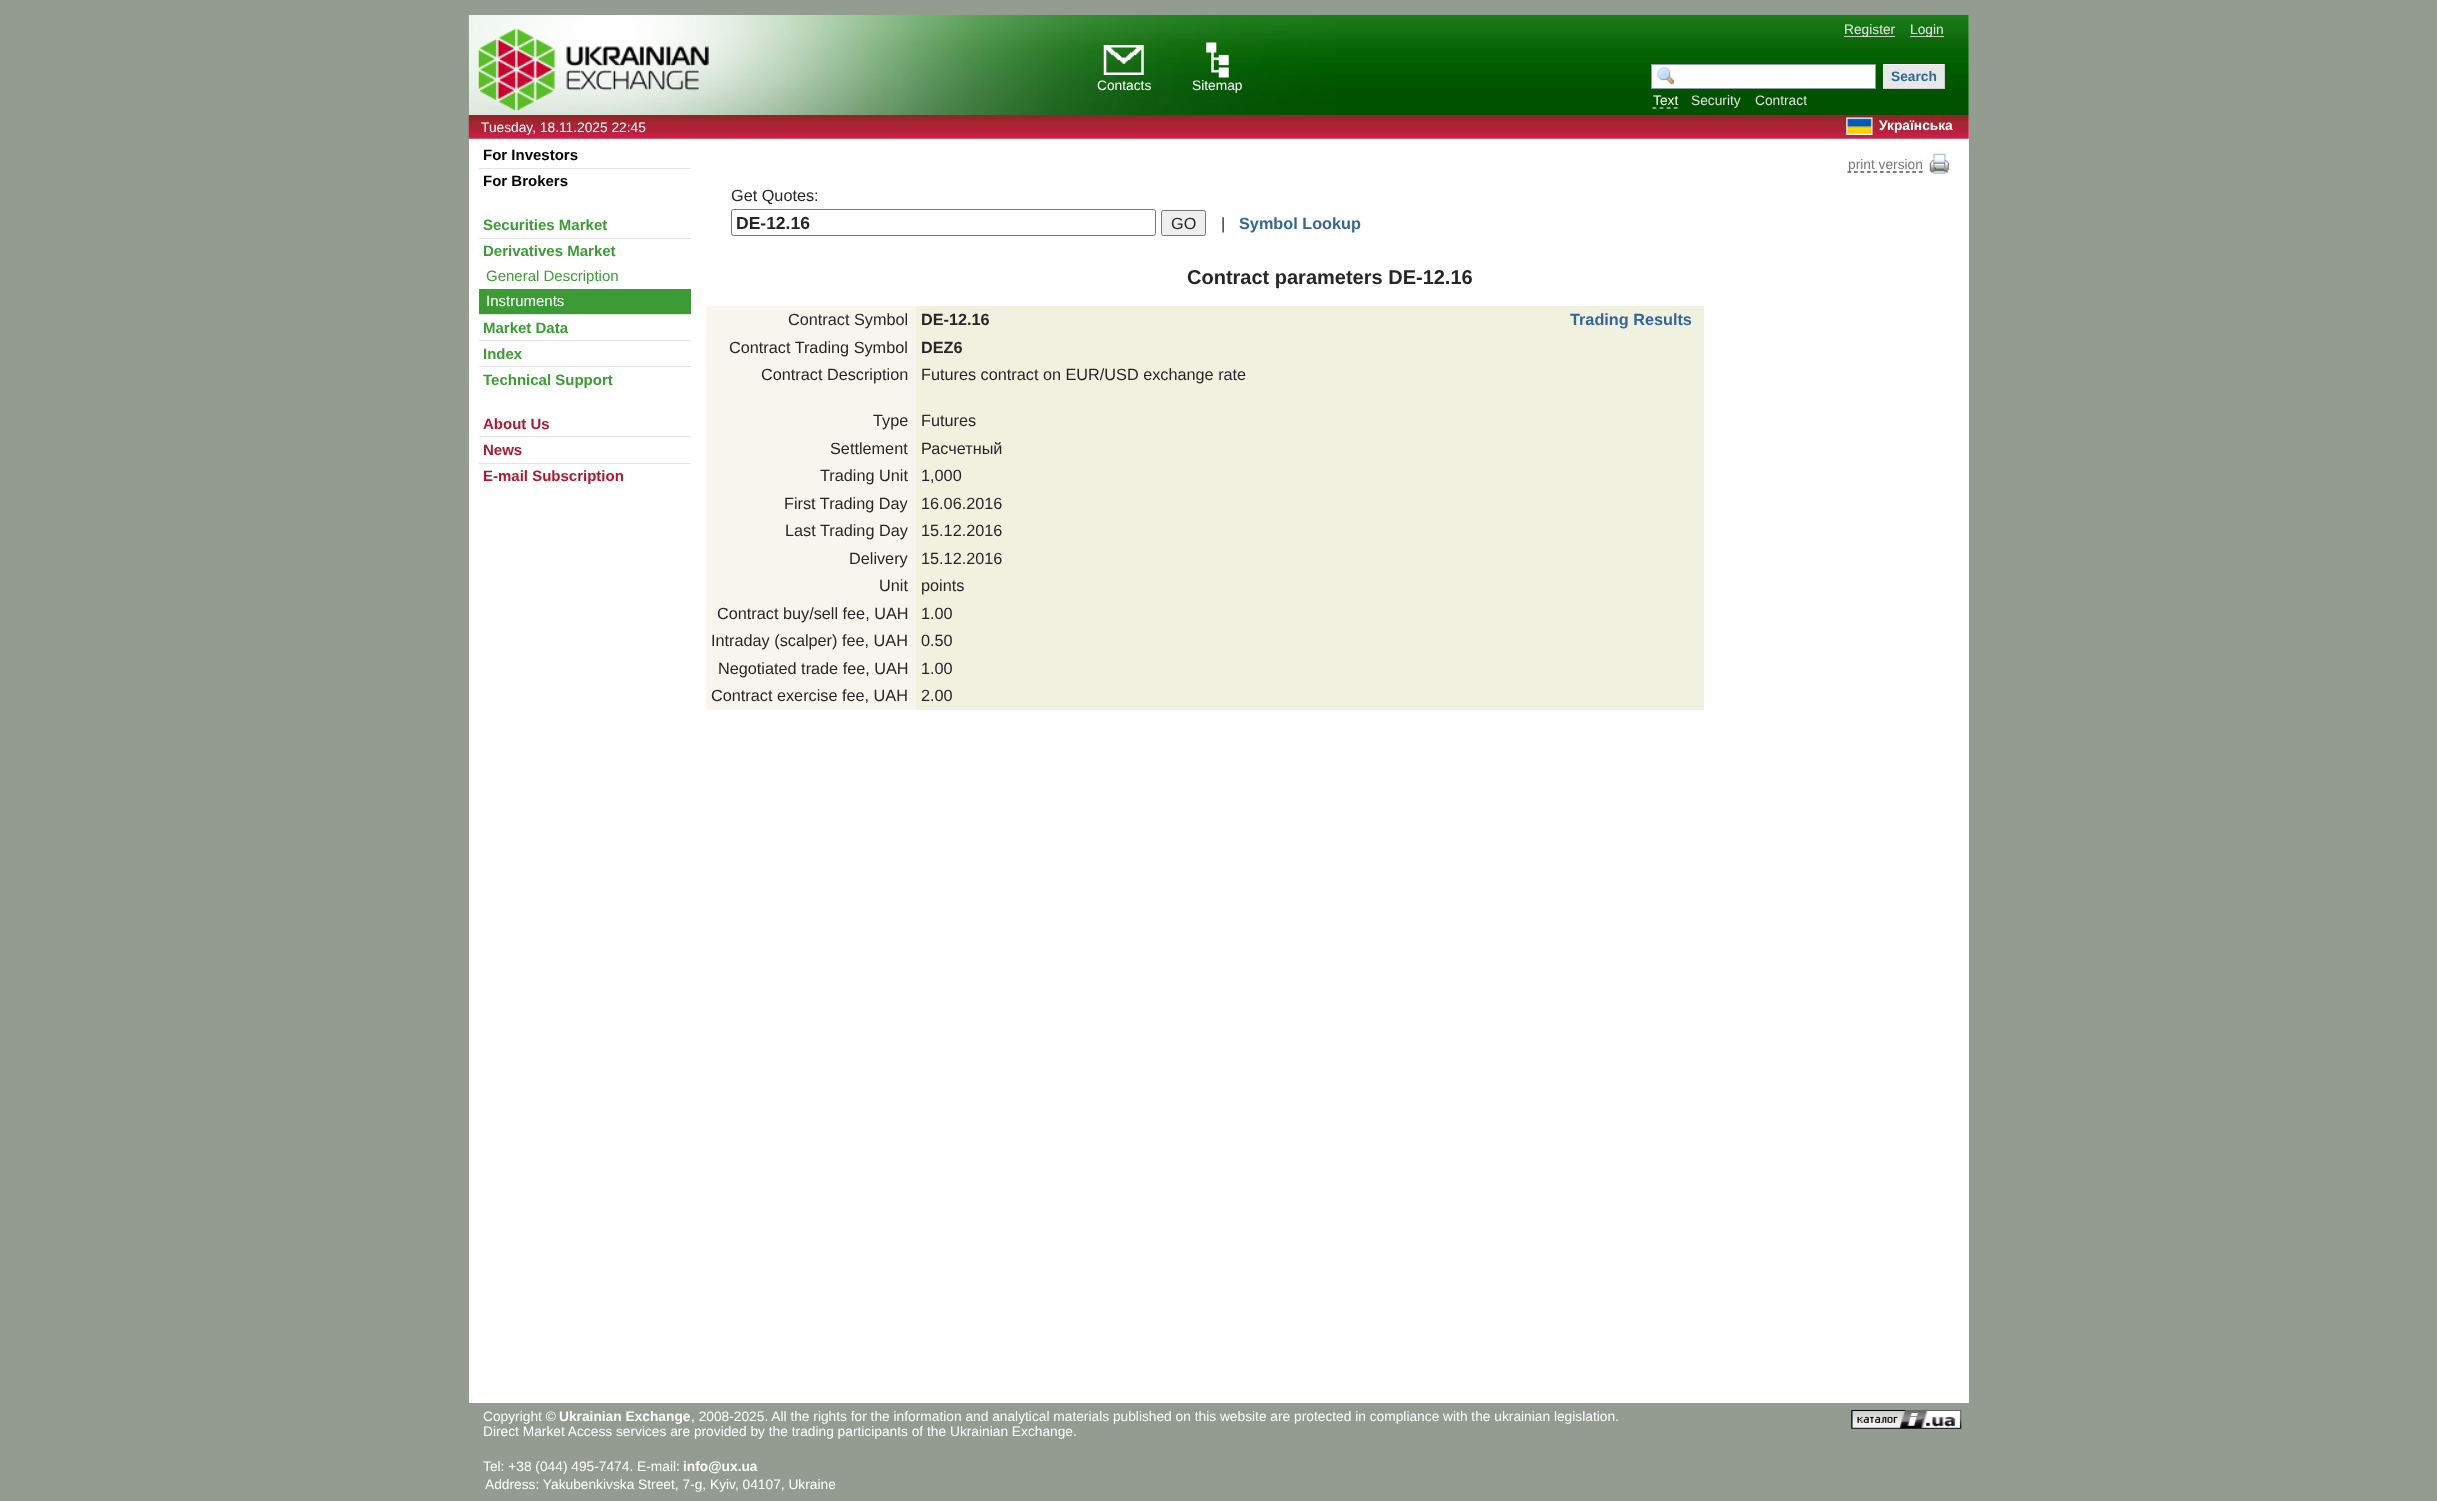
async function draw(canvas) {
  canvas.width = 2437
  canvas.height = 1501
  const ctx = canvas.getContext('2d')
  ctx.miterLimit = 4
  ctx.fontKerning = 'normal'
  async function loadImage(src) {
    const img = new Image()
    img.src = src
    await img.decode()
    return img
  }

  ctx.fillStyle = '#949c91'
  ctx.fillRect(0, 0, 2437, 1501)
  ctx.fillStyle = '#fff'
  ctx.fillRect(469, 15, 1500, 1388)
  ctx.drawImage(await loadImage('image0.png'), 468, 15, 1501, 100)
  ctx.drawImage(await loadImage('image1.png'), 468, 15, 868, 100)
  ctx.drawImage(await loadImage('image2.png'), 478, 28, 231, 82)
  ctx.fillStyle = '#c9c9c9'
  ctx.fillRect(1844, 36, 51, 1)
  ctx.font = '13.75px Liberation Sans'
  ctx.fillStyle = '#e9e9e9'
  ctx.fillText('Register', 1844, 34)
  ctx.fillStyle = '#c9c9c9'
  ctx.fillRect(1910, 36, 34, 1)
  ctx.fillStyle = '#e9e9e9'
  ctx.fillText('Login', 1910, 34)
  ctx.drawImage(await loadImage('image3.png'), 1103, 45, 41, 30)
  ctx.drawImage(await loadImage('image4.png'), 1206, 42, 23, 36)
  ctx.fillStyle = '#fff'
  ctx.fillText('Contacts', 1097, 90)
  ctx.fillText('Sitemap', 1192, 90)
  ctx.fillRect(1652, 65, 223, 23)
  ctx.drawImage(await loadImage('image5.png'), 1657, 67, 17, 18)
  ctx.strokeStyle = '#8ea0ad'
  ctx.strokeRect(1651.5, 64.5, 224, 24)
  ctx.fillStyle = '#e7e9e8'
  ctx.fillRect(1884, 65, 60, 23)
  ctx.fillStyle = '#fff'
  ctx.fillRect(1883, 64, 62, 1)
  ctx.fillStyle = '#cecece'
  ctx.fillRect(1944, 64, 1, 25)
  ctx.fillRect(1883, 88, 62, 1)
  ctx.fillStyle = '#fff'
  ctx.fillRect(1883, 64, 1, 25)
  ctx.font = 'bold 13.75px Liberation Sans'
  ctx.fillStyle = '#369'
  ctx.fillText('Search', 1891, 81)
  ctx.font = '13.75px Liberation Sans'
  ctx.fillStyle = '#fff'
  ctx.fillText('Text', 1653, 105)
  ctx.beginPath()
  ctx.moveTo(1652.5, 108)
  ctx.lineTo(1677.5, 108)
  ctx.strokeStyle = '#fff'
  ctx.lineWidth = 1.2
  ctx.setLineDash([3.75, 3.34])
  ctx.stroke()
  ctx.fillStyle = '#e1e1e1'
  ctx.fillText('Security', 1691, 105)
  ctx.fillText('Contract', 1755, 105)
  ctx.drawImage(await loadImage('image6.png'), 468, 115, 1501, 24)
  ctx.fillStyle = '#fff'
  ctx.fillText('Tuesday, 18.11.2025 22:45', 481, 132)
  ctx.drawImage(await loadImage('image7.png'), 1846, 117, 27, 18)
  ctx.font = 'bold 13.75px Liberation Sans'
  ctx.fillText('Українська', 1879, 130)
  ctx.font = 'bold 15px Liberation Sans'
  ctx.fillStyle = '#000'
  ctx.fillText('For Investors', 483, 160)
  ctx.fillStyle = '#e4e4e4'
  ctx.fillRect(479, 168, 212, 1)
  ctx.fillStyle = '#000'
  ctx.fillText('For Brokers', 483, 186)
  ctx.fillStyle = '#3d9b35'
  ctx.fillText('Securities Market', 483, 230)
  ctx.fillStyle = '#e4e4e4'
  ctx.fillRect(479, 238, 212, 1)
  ctx.fillStyle = '#3d9b35'
  ctx.fillText('Derivatives Market', 483, 256)
  ctx.font = '15px Liberation Sans'
  ctx.fillText('General Description', 486, 281)
  ctx.fillRect(479, 289, 212, 25)
  ctx.fillStyle = '#fff'
  ctx.fillText('Instruments', 486, 306)
  ctx.fillStyle = '#e4e4e4'
  ctx.fillRect(479, 314, 212, 1)
  ctx.font = 'bold 15px Liberation Sans'
  ctx.fillStyle = '#3d9b35'
  ctx.fillText('Market Data', 483, 333)
  ctx.fillStyle = '#e4e4e4'
  ctx.fillRect(479, 340, 212, 1)
  ctx.fillStyle = '#3d9b35'
  ctx.fillText('Index', 483, 359)
  ctx.fillStyle = '#e4e4e4'
  ctx.fillRect(479, 366, 212, 1)
  ctx.fillStyle = '#3d9b35'
  ctx.fillText('Technical Support', 483, 385)
  ctx.fillStyle = '#ac1a2f'
  ctx.fillText('About Us', 483, 429)
  ctx.fillStyle = '#e4e4e4'
  ctx.fillRect(479, 436, 212, 1)
  ctx.fillStyle = '#ac1a2f'
  ctx.fillText('News', 483, 455)
  ctx.fillStyle = '#e4e4e4'
  ctx.fillRect(479, 463, 212, 1)
  ctx.fillStyle = '#ac1a2f'
  ctx.fillText('E-mail Subscription', 483, 481)
  ctx.beginPath()
  ctx.moveTo(1847.5, 172)
  ctx.lineTo(1922.5, 172)
  ctx.strokeStyle = '#000'
  ctx.setLineDash([3.75, 2.73])
  ctx.stroke()
  ctx.font = '13.75px Liberation Sans'
  ctx.fillStyle = '#777'
  ctx.fillText('print version', 1848, 169)
  ctx.drawImage(await loadImage('image8.png'), 1929, 153, 21, 21)
  ctx.font = '16.25px Liberation Sans'
  ctx.fillStyle = '#262626'
  ctx.fillText('Get Quotes:', 731, 201)
  ctx.beginPath()
  ctx.roundRect(731.5, 209.5, 424, 26, 2)
  ctx.strokeStyle = '#767676'
  ctx.lineWidth = 1
  ctx.setLineDash([])
  ctx.stroke()
  ctx.font = 'bold 17.5px Liberation Sans'
  ctx.fillText('DE-12.16', 736, 229)
  ctx.fillStyle = '#efefef'
  ctx.beginPath()
  ctx.roundRect(1161.5, 210.5, 44, 25, 2)
  ctx.fill()
  ctx.stroke()
  ctx.font = '16.25px Liberation Sans'
  ctx.fillStyle = '#262626'
  ctx.fillText('GO', 1171, 229)
  ctx.fillText('|', 1221, 229)
  ctx.font = 'bold 16.25px Liberation Sans'
  ctx.fillStyle = '#369'
  ctx.fillText('Symbol Lookup', 1239, 229)
  ctx.font = 'bold 20px Liberation Sans'
  ctx.fillStyle = '#262626'
  ctx.fillText('Contract parameters DE-12.16', 1187, 284)
  ctx.fillStyle = '#f8f5ee'
  ctx.fillRect(706, 306, 210, 404)
  ctx.font = '16.25px Liberation Sans'
  ctx.fillStyle = '#262626'
  ctx.fillText('Contract Symbol', 788, 325)
  ctx.fillStyle = '#f1f1e0'
  ctx.fillRect(916, 306, 788, 404)
  ctx.font = 'bold 16.25px Liberation Sans'
  ctx.fillStyle = '#262626'
  ctx.fillText('DE-12.16', 921, 325)
  ctx.fillStyle = '#369'
  ctx.fillText('Trading Results', 1570, 325)
  ctx.font = '16.25px Liberation Sans'
  ctx.fillStyle = '#262626'
  ctx.fillText('Contract Trading Symbol', 729, 353)
  ctx.font = 'bold 16.25px Liberation Sans'
  ctx.fillText('DEZ6', 921, 353)
  ctx.font = '16.25px Liberation Sans'
  ctx.fillText('Contract Description', 761, 380)
  ctx.fillText('Futures contract on EUR/USD exchange rate', 921, 380)
  ctx.fillText('Type', 873, 426)
  ctx.fillText('Futures', 921, 426)
  ctx.fillText('Settlement', 830, 454)
  ctx.fillText('Расчетный', 921, 454)
  ctx.fillText('Trading Unit', 820, 481)
  ctx.fillText('1,000', 921, 481)
  ctx.fillText('First Trading Day', 784, 509)
  ctx.fillText('16.06.2016', 921, 509)
  ctx.fillText('Last Trading Day', 785, 536)
  ctx.fillText('15.12.2016', 921, 536)
  ctx.fillText('Delivery', 849, 564)
  ctx.fillText('15.12.2016', 921, 564)
  ctx.fillText('Unit', 879, 591)
  ctx.fillText('points', 921, 591)
  ctx.fillText('Contract buy/sell fee, UAH', 717, 619)
  ctx.fillText('1.00', 921, 619)
  ctx.fillText('Intraday (scalper) fee, UAH', 711, 646)
  ctx.fillText('0.50', 921, 646)
  ctx.fillText('Negotiated trade fee, UAH', 718, 674)
  ctx.fillText('1.00', 921, 674)
  ctx.fillText('Contract exercise fee, UAH', 711, 701)
  ctx.fillText('2.00', 921, 701)
  ctx.font = '13.75px Liberation Sans'
  ctx.fillStyle = '#fff'
  ctx.fillText('Copyright ©', 483, 1421)
  ctx.font = 'bold 13.75px Liberation Sans'
  ctx.fillText('Ukrainian Exchange', 559, 1421)
  ctx.font = '13.75px Liberation Sans'
  ctx.fillText(', 2008-2025. All the rights for the information and analytical materials published on this website are protected in compliance with the ukrainian legislation.', 691, 1421)
  ctx.fillText('Direct Market Access services are provided by the trading participants of the Ukrainian Exchange.', 483, 1436)
  ctx.drawImage(await loadImage('image9.png'), 1851, 1410, 111, 19)
  ctx.fillText('Tel: +38 (044) 495-7474. E-mail:', 483, 1471)
  ctx.font = 'bold 13.75px Liberation Sans'
  ctx.fillText('info@ux.ua', 683, 1471)
  ctx.font = '13.75px Liberation Sans'
  ctx.fillText('Address: Yakubenkivska Street, 7-g, Kyiv, 04107, Ukraine', 485, 1489)
}

draw(document.querySelector('canvas'))
